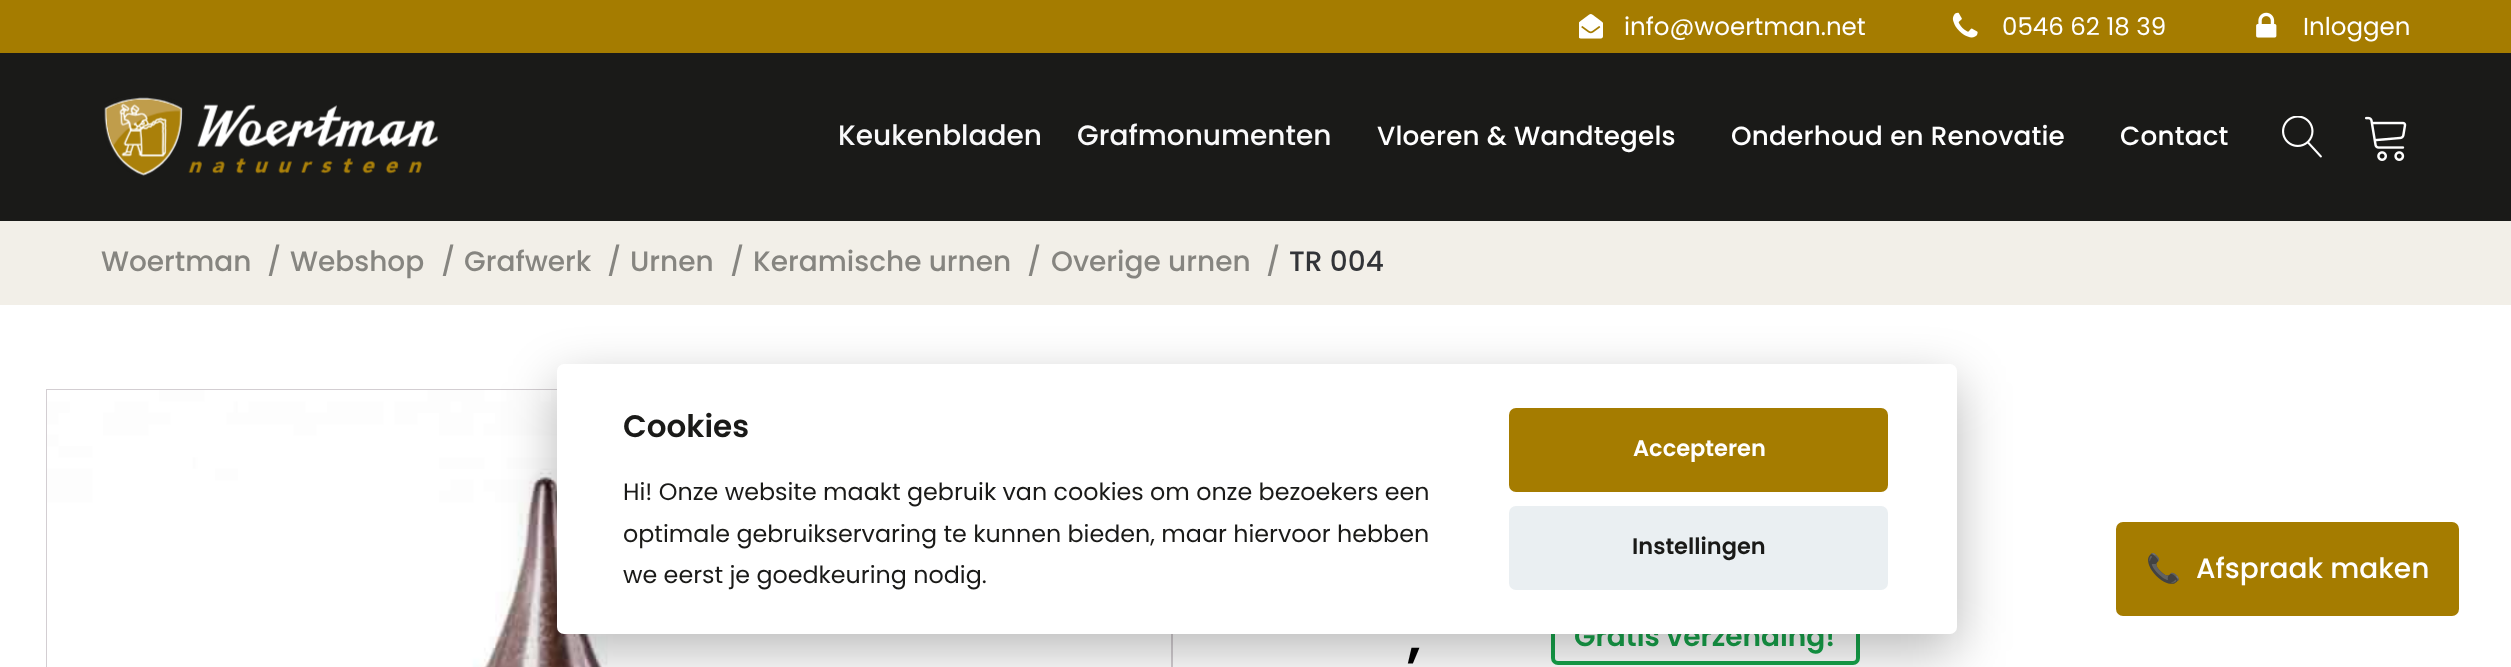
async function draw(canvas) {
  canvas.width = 2511
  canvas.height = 667
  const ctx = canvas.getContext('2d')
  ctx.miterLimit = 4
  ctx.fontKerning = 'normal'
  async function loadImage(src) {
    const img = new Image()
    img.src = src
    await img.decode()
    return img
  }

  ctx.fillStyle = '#fff'
  ctx.fillRect(0, 0, 2511, 667)
  ctx.fillStyle = '#a57c00'
  ctx.fillRect(0, 0, 2511, 53)
  ctx.drawImage(await loadImage('image0.png'), 1579, 14, 24, 25)
  ctx.font = '24.5px Poppins'
  ctx.fillStyle = '#fff'
  ctx.fillText('info@woertman.net', 1624, 35)
  ctx.drawImage(await loadImage('image1.png'), 1952, 12, 26, 26)
  ctx.fillText('0546 62 18 39', 2002, 35)
  ctx.drawImage(await loadImage('image2.png'), 2256, 12, 21, 26)
  ctx.fillText('Inloggen', 2303, 35)
  ctx.fillStyle = '#1a1a18'
  ctx.fillRect(0, 53, 2511, 168)
  ctx.drawImage(await loadImage('image3.png'), 104, 97, 334, 79)
  ctx.font = '500 28px Poppins'
  ctx.fillStyle = '#f9f9fa'
  ctx.fillText('Keukenbladen', 838, 145)
  ctx.fillText('Grafmonumenten', 1077, 145)
  ctx.letterSpacing = '0.2px'
  ctx.font = '500 26.25px Poppins'
  ctx.fillStyle = '#fff'
  ctx.fillText('Vloeren & Wandtegels', 1377, 145)
  ctx.fillText('Onderhoud en Renovatie', 1731, 145)
  ctx.fillText('Contact', 2120, 145)
  ctx.drawImage(await loadImage('image4.png'), 2282, 116, 40, 42)
  ctx.drawImage(await loadImage('image5.png'), 2365, 116, 42, 45)
  ctx.fillStyle = '#f2efe8'
  ctx.fillRect(0, 221, 2511, 84)
  ctx.letterSpacing = '0px'
  ctx.font = '500 28px Poppins'
  ctx.fillStyle = '#868580'
  ctx.fillText('Woertman', 101, 271)
  ctx.fillText('/', 267, 271)
  ctx.fillText('Webshop', 290, 271)
  ctx.fillText('/', 441, 271)
  ctx.fillText('Grafwerk', 464, 271)
  ctx.fillText('/', 607, 271)
  ctx.fillText('Urnen', 630, 271)
  ctx.fillText('/', 730, 271)
  ctx.fillText('Keramische urnen', 753, 271)
  ctx.fillText('/', 1027, 271)
  ctx.fillText('Overige urnen', 1051, 271)
  ctx.fillText('/', 1266, 271)
  ctx.fillStyle = '#323438'
  ctx.fillText('TR 004', 1289, 271)
  ctx.strokeStyle = '#d3ced2'
  ctx.lineWidth = 2
  ctx.strokeRect(47, 390, 1125, 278)
  ctx.drawImage(await loadImage('image6.png'), 47, 390, 1050, 277)
  ctx.font = '600 56px Poppins'
  ctx.fillStyle = '#000'
  ctx.fillText(',', 1407, 656)
  ctx.beginPath()
  ctx.roundRect(1553, 611, 305, 52, 5)
  ctx.strokeStyle = '#16a34a'
  ctx.lineWidth = 4
  ctx.stroke()
  ctx.font = '600 28px Poppins'
  ctx.fillStyle = '#16a34a'
  ctx.fillText('Gratis verzending!', 1574, 646)
  ctx.fillStyle = '#02020347'
  ctx.filter = 'blur(26px)'
  ctx.beginPath()
  ctx.roundRect(557, 382, 1400, 269, 7)
  ctx.fill()
  ctx.filter = 'none'
  ctx.fillStyle = '#fff'
  ctx.beginPath()
  ctx.roundRect(557, 364, 1400, 270, 7)
  ctx.fill()
  ctx.font = '600 31px Poppins'
  ctx.fillStyle = '#1a1a18'
  ctx.fillText('Cookies', 623, 437)
  ctx.font = '23.8px Poppins'
  ctx.fillText('Hi! Onze website maakt gebruik van cookies om onze bezoekers een', 623, 500)
  ctx.fillText('optimale gebruikservaring te kunnen bieden, maar hiervoor hebben', 623, 542)
  ctx.fillText('we eerst je goedkeuring nodig.', 623, 583)
  ctx.fillStyle = '#a57c00'
  ctx.beginPath()
  ctx.roundRect(1509, 408, 379, 84, 7)
  ctx.fill()
  ctx.font = '600 22.5px Poppins'
  ctx.fillStyle = '#fff'
  ctx.fillText('Accepteren', 1633, 456)
  ctx.fillStyle = '#eaeff2'
  ctx.beginPath()
  ctx.roundRect(1509, 506, 379, 84, 7)
  ctx.fill()
  ctx.fillStyle = '#1a1a18'
  ctx.fillText('Instellingen', 1632, 554)
  ctx.fillStyle = '#a57c00'
  ctx.beginPath()
  ctx.roundRect(2117, 523, 341, 92, 6)
  ctx.fill()
  ctx.strokeStyle = '#a57c00'
  ctx.lineWidth = 2
  ctx.stroke()
  ctx.font = '28px Noto Color Emoji'
  ctx.fillStyle = '#fff'
  ctx.fillText('📞', 2146, 578)
  ctx.font = '500 28px Poppins'
  ctx.fillText('Afspraak maken', 2196, 578)
}

draw(document.querySelector('canvas'))
